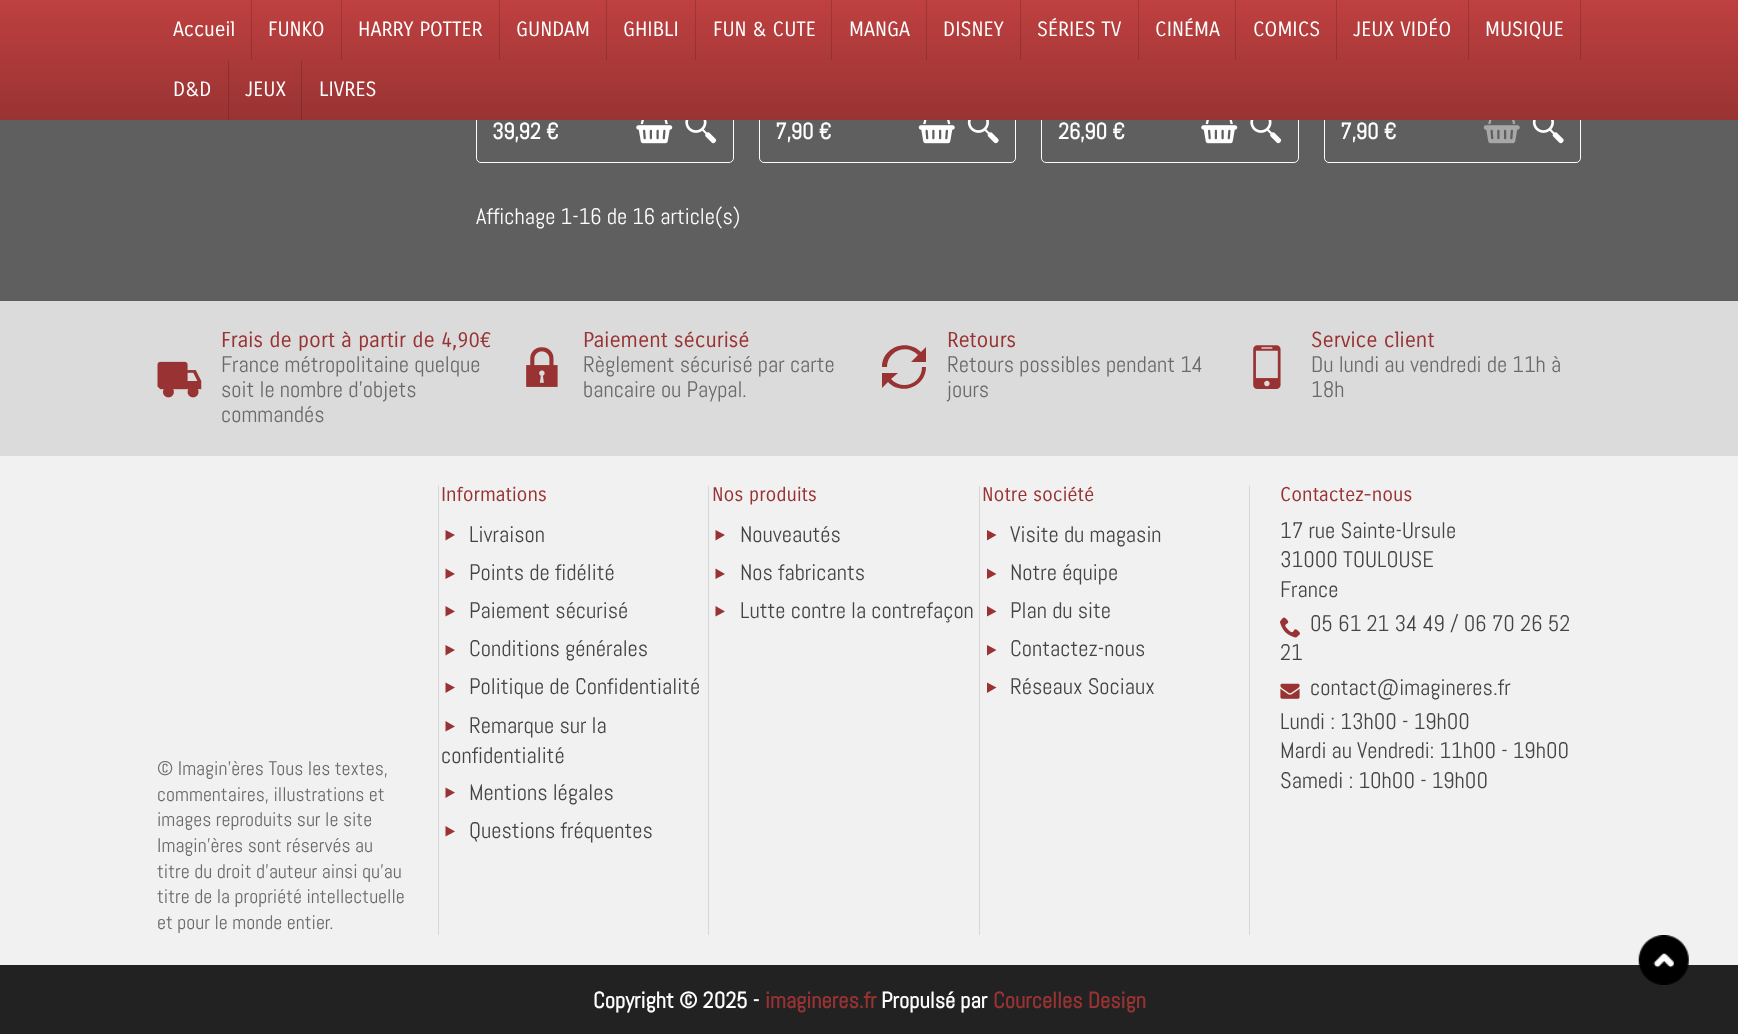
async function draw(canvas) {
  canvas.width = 1738
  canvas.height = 1034
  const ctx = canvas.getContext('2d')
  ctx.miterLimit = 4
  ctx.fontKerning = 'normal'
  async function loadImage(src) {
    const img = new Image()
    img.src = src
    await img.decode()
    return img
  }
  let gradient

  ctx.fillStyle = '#5f5f5f'
  ctx.fillRect(0, 0, 1738, 1034)
  ctx.beginPath()
  ctx.roundRect(476.5, -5.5, 257, 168, 4.5)
  ctx.strokeStyle = '#fdfbfb'
  ctx.stroke()
  ctx.beginPath()
  ctx.roundRect(759.5, -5.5, 256, 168, 4.5)
  ctx.stroke()
  ctx.beginPath()
  ctx.roundRect(1041.5, -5.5, 257, 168, 4.5)
  ctx.stroke()
  ctx.beginPath()
  ctx.roundRect(1324.5, -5.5, 256, 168, 4.5)
  ctx.stroke()
  gradient = ctx.createLinearGradient(869, 0, 869, 120)
  gradient.addColorStop(0, '#bf4040')
  gradient.addColorStop(1, '#933')
  ctx.fillStyle = gradient
  ctx.fillRect(0, 0, 1738, 120)
  gradient = ctx.createLinearGradient(869, 0, 869, 120)
  gradient.addColorStop(0, '#a23636')
  gradient.addColorStop(1, '#822b2b')
  ctx.fillStyle = gradient
  ctx.fillRect(301, 60, 1, 60)
  ctx.fillRect(228, 60, 1, 60)
  ctx.fillRect(1336, 0, 1, 60)
  ctx.fillRect(1020, 0, 1, 60)
  ctx.fillRect(341, 0, 1, 60)
  ctx.fillRect(251, 0, 1, 60)
  ctx.font = '20px Carrois Gothic'
  ctx.fillStyle = '#fff'
  ctx.fillText('Accueil', 173, 36)
  ctx.fillText('FUNKO', 268, 36)
  ctx.fillStyle = '#00000026'
  ctx.fillRect(499, 0, 1, 60)
  ctx.fillStyle = '#fff'
  ctx.fillText('HARRY POTTER', 358, 36)
  ctx.fillStyle = '#00000026'
  ctx.fillRect(606, 0, 1, 60)
  ctx.fillStyle = '#fff'
  ctx.fillText('GUNDAM', 516, 36)
  ctx.fillStyle = '#00000026'
  ctx.fillRect(695, 0, 1, 60)
  ctx.fillStyle = '#fff'
  ctx.fillText('GHIBLI', 623, 36)
  ctx.fillStyle = '#00000026'
  ctx.fillRect(831, 0, 1, 60)
  ctx.fillStyle = '#fff'
  ctx.fillText('FUN & CUTE', 713, 36)
  ctx.fillStyle = '#00000026'
  ctx.fillRect(926, 0, 1, 60)
  ctx.fillStyle = '#fff'
  ctx.fillText('MANGA', 849, 36)
  ctx.fillText('DISNEY', 943, 36)
  ctx.fillStyle = '#00000026'
  ctx.fillRect(1138, 0, 1, 60)
  ctx.fillStyle = '#fff'
  ctx.fillText('SÉRIES TV', 1037, 36)
  ctx.fillStyle = '#00000026'
  ctx.fillRect(1235, 0, 1, 60)
  ctx.fillStyle = '#fff'
  ctx.fillText('CINÉMA', 1155, 36)
  ctx.fillText('COMICS', 1253, 36)
  ctx.fillStyle = '#00000026'
  ctx.fillRect(1468, 0, 1, 60)
  ctx.fillStyle = '#fff'
  ctx.fillText('JEUX VIDÉO', 1353, 36)
  ctx.fillStyle = '#00000026'
  ctx.fillRect(1580, 0, 1, 60)
  ctx.fillStyle = '#fff'
  ctx.fillText('MUSIQUE', 1485, 36)
  ctx.fillText('D&D', 173, 96)
  ctx.fillText('JEUX', 245, 96)
  ctx.fillText('LIVRES', 319, 96)
  ctx.font = 'bold 22.5px Abel'
  ctx.fillText('39,92 €', 492, 139)
  ctx.drawImage(await loadImage('image0.png'), 636, 120, 37, 24)
  ctx.drawImage(await loadImage('image1.png'), 685, 120, 32, 24)
  ctx.fillText('7,90 €', 775, 139)
  ctx.drawImage(await loadImage('image2.png'), 918, 120, 37, 24)
  ctx.drawImage(await loadImage('image3.png'), 967, 120, 32, 24)
  ctx.fillText('26,90 €', 1058, 139)
  ctx.drawImage(await loadImage('image0.png'), 1201, 120, 37, 24)
  ctx.drawImage(await loadImage('image1.png'), 1250, 120, 32, 24)
  ctx.fillText('7,90 €', 1340, 139)
  ctx.drawImage(await loadImage('image4.png'), 1483, 120, 37, 24)
  ctx.drawImage(await loadImage('image3.png'), 1532, 120, 32, 24)
  ctx.font = '22.5px Abel'
  ctx.fillText('Affichage 1-16 de 16 article(s)', 476, 224)
  ctx.fillStyle = '#dbdbdb'
  ctx.fillRect(0, 301, 1738, 155)
  ctx.drawImage(await loadImage('image5.png'), 157, 361, 45, 37)
  ctx.font = '21px Carrois Gothic'
  ctx.fillStyle = '#933'
  ctx.fillText('Frais de port à partir de 4,90€', 221, 347)
  ctx.font = '22.5px Abel'
  ctx.fillStyle = '#6a6a6a'
  ctx.fillText('France métropolitaine quelque', 221, 372)
  ctx.fillText('soit le nombre d\'objets', 221, 397)
  ctx.fillText('commandés', 221, 422)
  ctx.drawImage(await loadImage('image6.png'), 526, 347, 32, 40)
  ctx.font = '21px Carrois Gothic'
  ctx.fillStyle = '#933'
  ctx.fillText('Paiement sécurisé', 583, 347)
  ctx.font = '22.5px Abel'
  ctx.fillStyle = '#6a6a6a'
  ctx.fillText('Règlement sécurisé par carte', 583, 372)
  ctx.fillText('bancaire ou Paypal.', 583, 397)
  ctx.fillStyle = '#933'
  ctx.beginPath()
  ctx.moveTo(921, 352)
  ctx.bezierCurveTo(907, 338, 882, 347, 882, 367)
  ctx.lineTo(887, 367)
  ctx.bezierCurveTo(887, 351, 907, 343, 918, 355)
  ctx.lineTo(911, 362)
  ctx.lineTo(926, 362)
  ctx.lineTo(926, 347)
  ctx.closePath()
  ctx.moveTo(922, 367)
  ctx.bezierCurveTo(922, 384, 902, 391, 891, 379)
  ctx.lineTo(898, 373)
  ctx.lineTo(882, 373)
  ctx.lineTo(882, 388)
  ctx.lineTo(888, 382)
  ctx.bezierCurveTo(901, 396, 926, 387, 926, 367)
  ctx.closePath()
  ctx.fill()
  ctx.font = '21px Carrois Gothic'
  ctx.fillText('Retours', 947, 347)
  ctx.font = '22.5px Abel'
  ctx.fillStyle = '#6a6a6a'
  ctx.fillText('Retours possibles pendant 14', 947, 372)
  ctx.fillText('jours', 947, 397)
  ctx.drawImage(await loadImage('image7.png'), 1253, 345, 28, 44)
  ctx.font = '21px Carrois Gothic'
  ctx.fillStyle = '#933'
  ctx.fillText('Service client', 1311, 347)
  ctx.font = '22.5px Abel'
  ctx.fillStyle = '#6a6a6a'
  ctx.fillText('Du lundi au vendredi de 11h à', 1311, 372)
  ctx.fillText('18h', 1311, 397)
  ctx.fillStyle = '#f1f1f1'
  ctx.fillRect(0, 456, 1738, 509)
  ctx.fillStyle = '#d7d7d7'
  ctx.fillRect(438, 486, 1, 449)
  ctx.font = '19.25px Carrois Gothic'
  ctx.fillStyle = '#933'
  ctx.fillText('Informations', 441, 501)
  ctx.beginPath()
  ctx.moveTo(455, 535)
  ctx.lineTo(445.5, 540.5)
  ctx.lineTo(445.5, 530)
  ctx.closePath()
  ctx.fill()
  ctx.font = '22.5px Abel'
  ctx.fillStyle = '#444'
  ctx.fillText('Livraison', 469, 542)
  ctx.fillStyle = '#933'
  ctx.beginPath()
  ctx.moveTo(455, 574)
  ctx.lineTo(445.5, 579)
  ctx.lineTo(445.5, 568.5)
  ctx.closePath()
  ctx.fill()
  ctx.fillStyle = '#444'
  ctx.fillText('Points de fidélité', 469, 580)
  ctx.fillStyle = '#933'
  ctx.beginPath()
  ctx.moveTo(455, 611.5)
  ctx.lineTo(445.5, 616.5)
  ctx.lineTo(445.5, 606)
  ctx.closePath()
  ctx.fill()
  ctx.fillStyle = '#444'
  ctx.fillText('Paiement sécurisé', 469, 618)
  ctx.fillStyle = '#933'
  ctx.beginPath()
  ctx.moveTo(455, 650)
  ctx.lineTo(445.5, 655.5)
  ctx.lineTo(445.5, 645)
  ctx.closePath()
  ctx.fill()
  ctx.fillStyle = '#444'
  ctx.fillText('Conditions générales', 469, 656)
  ctx.fillStyle = '#933'
  ctx.beginPath()
  ctx.moveTo(455, 687.5)
  ctx.lineTo(445.5, 693)
  ctx.lineTo(445.5, 682.5)
  ctx.closePath()
  ctx.fill()
  ctx.fillStyle = '#444'
  ctx.fillText('Politique de Confidentialité', 469, 694)
  ctx.fillStyle = '#933'
  ctx.beginPath()
  ctx.moveTo(455, 726.5)
  ctx.lineTo(445.5, 731.5)
  ctx.lineTo(445.5, 721)
  ctx.closePath()
  ctx.fill()
  ctx.fillStyle = '#444'
  ctx.fillText('Remarque sur la', 469, 733)
  ctx.fillText('confidentialité', 441, 763)
  ctx.fillStyle = '#933'
  ctx.beginPath()
  ctx.moveTo(455, 792.5)
  ctx.lineTo(445.5, 798)
  ctx.lineTo(445.5, 787.5)
  ctx.closePath()
  ctx.fill()
  ctx.fillStyle = '#444'
  ctx.fillText('Mentions légales', 469, 800)
  ctx.fillStyle = '#933'
  ctx.beginPath()
  ctx.moveTo(455, 831.5)
  ctx.lineTo(445.5, 836.5)
  ctx.lineTo(445.5, 826)
  ctx.closePath()
  ctx.fill()
  ctx.fillStyle = '#444'
  ctx.fillText('Questions fréquentes', 469, 838)
  ctx.fillStyle = '#d7d7d7'
  ctx.fillRect(708, 486, 1, 449)
  ctx.font = '19.25px Carrois Gothic'
  ctx.fillStyle = '#933'
  ctx.fillText('Nos produits', 712, 501)
  ctx.beginPath()
  ctx.moveTo(725, 535)
  ctx.lineTo(715.5, 540.5)
  ctx.lineTo(715.5, 530)
  ctx.closePath()
  ctx.fill()
  ctx.font = '22.5px Abel'
  ctx.fillStyle = '#444'
  ctx.fillText('Nouveautés', 740, 542)
  ctx.fillStyle = '#933'
  ctx.beginPath()
  ctx.moveTo(725, 574)
  ctx.lineTo(715.5, 579)
  ctx.lineTo(715.5, 568.5)
  ctx.closePath()
  ctx.fill()
  ctx.fillStyle = '#444'
  ctx.fillText('Nos fabricants', 740, 580)
  ctx.fillStyle = '#933'
  ctx.beginPath()
  ctx.moveTo(725, 611.5)
  ctx.lineTo(715.5, 616.5)
  ctx.lineTo(715.5, 606)
  ctx.closePath()
  ctx.fill()
  ctx.fillStyle = '#444'
  ctx.fillText('Lutte contre la contrefaçon', 740, 618)
  ctx.fillStyle = '#d7d7d7'
  ctx.fillRect(979, 486, 1, 449)
  ctx.font = '19.25px Carrois Gothic'
  ctx.fillStyle = '#933'
  ctx.fillText('Notre société', 982, 501)
  ctx.beginPath()
  ctx.moveTo(996.5, 535)
  ctx.lineTo(987, 540.5)
  ctx.lineTo(987, 530)
  ctx.closePath()
  ctx.fill()
  ctx.font = '22.5px Abel'
  ctx.fillStyle = '#444'
  ctx.fillText('Visite du magasin', 1010, 542)
  ctx.fillStyle = '#933'
  ctx.beginPath()
  ctx.moveTo(996.5, 574)
  ctx.lineTo(987, 579)
  ctx.lineTo(987, 568.5)
  ctx.closePath()
  ctx.fill()
  ctx.fillStyle = '#444'
  ctx.fillText('Notre équipe', 1010, 580)
  ctx.fillStyle = '#933'
  ctx.beginPath()
  ctx.moveTo(996.5, 611.5)
  ctx.lineTo(987, 616.5)
  ctx.lineTo(987, 606)
  ctx.closePath()
  ctx.fill()
  ctx.fillStyle = '#444'
  ctx.fillText('Plan du site', 1010, 618)
  ctx.fillStyle = '#933'
  ctx.beginPath()
  ctx.moveTo(996.5, 650)
  ctx.lineTo(987, 655.5)
  ctx.lineTo(987, 645)
  ctx.closePath()
  ctx.fill()
  ctx.fillStyle = '#444'
  ctx.fillText('Contactez-nous', 1010, 656)
  ctx.fillStyle = '#933'
  ctx.beginPath()
  ctx.moveTo(996.5, 687.5)
  ctx.lineTo(987, 693)
  ctx.lineTo(987, 682.5)
  ctx.closePath()
  ctx.fill()
  ctx.fillStyle = '#444'
  ctx.fillText('Réseaux Sociaux', 1010, 694)
  ctx.fillStyle = '#d7d7d7'
  ctx.fillRect(1249, 486, 1, 449)
  ctx.font = '19.25px Carrois Gothic'
  ctx.fillStyle = '#933'
  ctx.fillText('Contactez-nous', 1280, 501)
  ctx.font = '22.5px Abel'
  ctx.fillStyle = '#444'
  ctx.fillText('17 rue Sainte-Ursule', 1280, 538)
  ctx.fillText('31000 TOULOUSE', 1280, 567)
  ctx.fillText('France', 1280, 597)
  ctx.drawImage(await loadImage('image8.png'), 1280, 617, 20, 21)
  ctx.fillText('05 61 21 34 49 / 06 70 26 52', 1310, 631)
  ctx.fillText('21', 1280, 660)
  ctx.drawImage(await loadImage('image9.png'), 1280, 683, 20, 16)
  ctx.fillText('contact@imagineres.fr', 1310, 695)
  ctx.fillText('Lundi : 13h00 - 19h00', 1280, 729)
  ctx.fillText('Mardi au Vendredi: 11h00 - 19h00', 1280, 758)
  ctx.fillText('Samedi : 10h00 - 19h00', 1280, 788)
  ctx.font = '19.75px Abel'
  ctx.fillStyle = '#6a6a6a'
  ctx.fillText('© Imagin\'ères Tous les textes,', 157, 775)
  ctx.fillText('commentaires, illustrations et', 157, 801)
  ctx.fillText('images reproduits sur le site', 157, 826)
  ctx.fillText('Imagin\'ères sont réservés au', 157, 852)
  ctx.fillText('titre du droit d\'auteur ainsi qu\'au', 157, 878)
  ctx.fillText('titre de la propriété intellectuelle', 157, 903)
  ctx.fillText('et pour le monde entier.', 157, 929)
  ctx.fillStyle = '#222'
  ctx.fillRect(0, 965, 1738, 69)
  ctx.drawImage(await loadImage('image10.png'), 1638, 935, 51, 50)
  ctx.font = 'bold 22.5px Abel'
  ctx.fillStyle = '#fff'
  ctx.fillText('Copyright © 2025 -', 593, 1008)
  ctx.fillStyle = '#933'
  ctx.fillText('imagineres.fr', 765, 1008)
  ctx.fillStyle = '#fff'
  ctx.fillText('Propulsé par', 881, 1008)
  ctx.fillStyle = '#933'
  ctx.fillText('Courcelles Design', 993, 1008)
}

draw(document.querySelector('canvas'))
